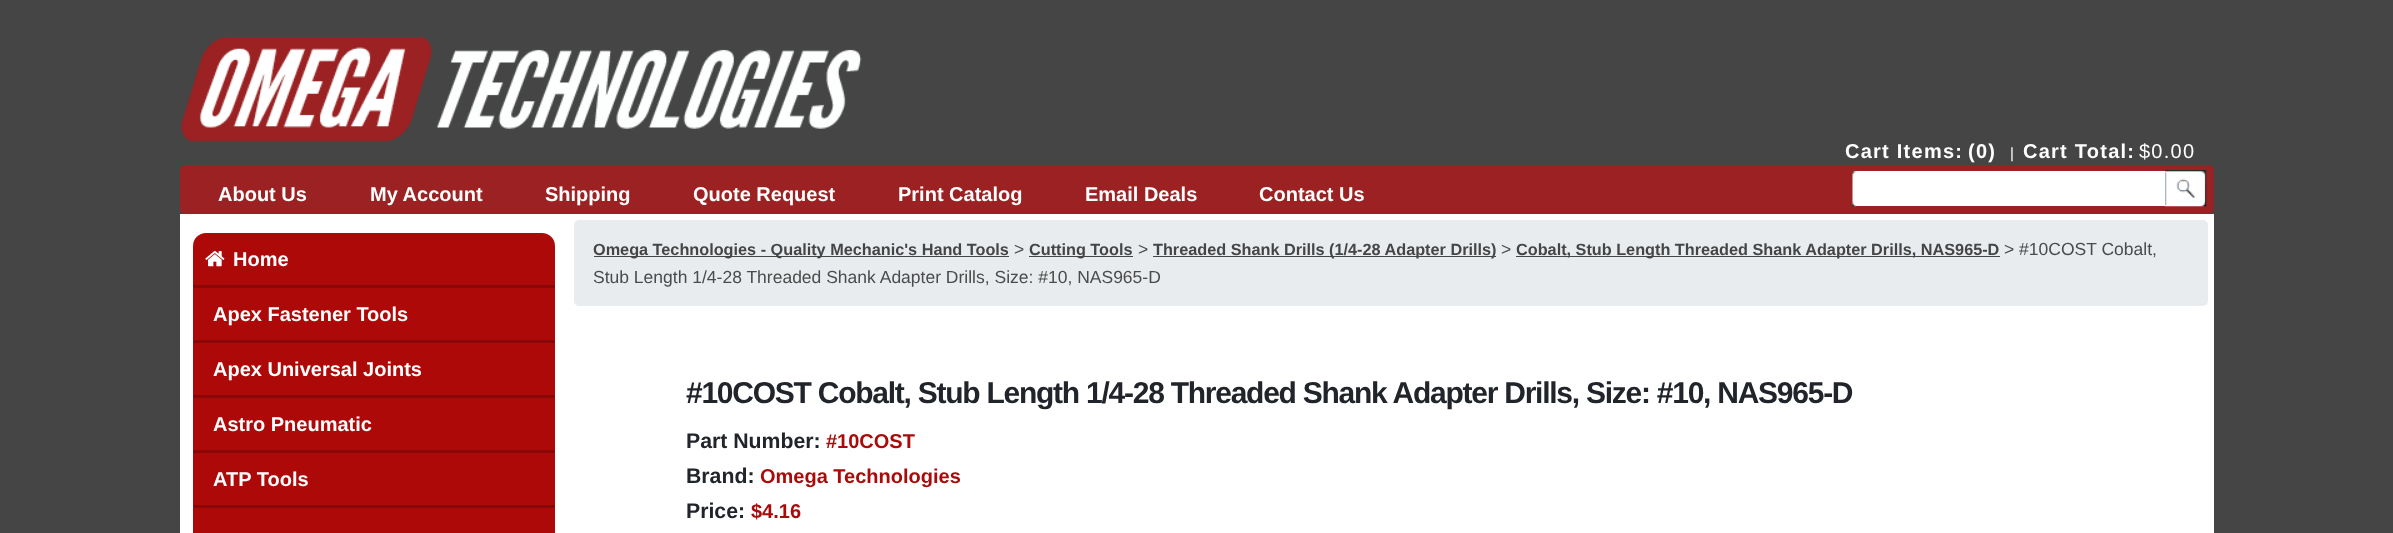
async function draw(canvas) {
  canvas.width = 2393
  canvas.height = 533
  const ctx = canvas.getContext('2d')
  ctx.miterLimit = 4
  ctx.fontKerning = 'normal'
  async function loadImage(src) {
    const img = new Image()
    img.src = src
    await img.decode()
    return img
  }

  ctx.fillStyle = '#454545'
  ctx.fillRect(0, 0, 2393, 533)
  ctx.drawImage(await loadImage('image0.png'), 181, 37, 681, 105)
  ctx.letterSpacing = '1.25px'
  ctx.font = 'bold 20px Liberation Sans'
  ctx.fillStyle = '#fff'
  ctx.fillText('Cart Items:', 1845, 158)
  ctx.fillText('(0)', 1968, 158)
  ctx.letterSpacing = '0px'
  ctx.font = '15px Liberation Sans'
  ctx.fillText('|', 2010, 158)
  ctx.letterSpacing = '1.25px'
  ctx.font = 'bold 20px Liberation Sans'
  ctx.fillText('Cart Total:', 2023, 158)
  ctx.font = '20px Liberation Sans'
  ctx.fillText('$0.00', 2139, 158)
  ctx.drawImage(await loadImage('image1.png'), 180, 165, 2034, 49)
  ctx.letterSpacing = '0px'
  ctx.font = 'bold 20px Liberation Sans'
  ctx.fillText('About Us', 218, 201)
  ctx.fillText('My Account', 370, 201)
  ctx.fillText('Shipping', 545, 201)
  ctx.fillText('Quote Request', 693, 201)
  ctx.fillText('Print Catalog', 898, 201)
  ctx.fillText('Email Deals', 1085, 201)
  ctx.fillText('Contact Us', 1259, 201)
  ctx.fillRect(1853, 171, 312, 35)
  ctx.drawImage(await loadImage('image2.png'), 1852, 171, 5, 36)
  ctx.drawImage(await loadImage('image3.png'), 2165, 170, 42, 37)
  ctx.fillRect(180, 214, 2034, 319)
  ctx.fillStyle = '#ad0909'
  ctx.beginPath()
  ctx.roundRect(193, 233, 362, 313, 13)
  ctx.fill()
  ctx.fillStyle = '#8a0707'
  ctx.fillRect(193, 285, 362, 3)
  ctx.drawImage(await loadImage('image4.png'), 205, 251, 20, 16)
  ctx.fillStyle = '#fff'
  ctx.fillText('Home', 233, 266)
  ctx.fillStyle = '#8a0707'
  ctx.fillRect(193, 340, 362, 3)
  ctx.fillStyle = '#fff'
  ctx.fillText('Apex Fastener Tools', 213, 321)
  ctx.fillStyle = '#8a0707'
  ctx.fillRect(193, 395, 362, 3)
  ctx.fillStyle = '#fff'
  ctx.fillText('Apex Universal Joints', 213, 376)
  ctx.fillStyle = '#8a0707'
  ctx.fillRect(193, 450, 362, 3)
  ctx.fillStyle = '#fff'
  ctx.fillText('Astro Pneumatic', 213, 431)
  ctx.fillStyle = '#8a0707'
  ctx.fillRect(193, 505, 362, 3)
  ctx.fillStyle = '#fff'
  ctx.fillText('ATP Tools', 213, 486)
  ctx.fillStyle = '#e9ecef'
  ctx.beginPath()
  ctx.roundRect(574, 220, 1634, 86, 5)
  ctx.fill()
  ctx.fillStyle = '#454545'
  ctx.fillRect(594, 256, 415, 1)
  ctx.font = 'bold 16.25px Liberation Sans'
  ctx.fillText('Omega Technologies - Quality Mechanic\'s Hand Tools', 593, 255)
  ctx.font = '17.5px Liberation Sans'
  ctx.fillStyle = '#4b4b4b'
  ctx.fillText('>', 1014, 255)
  ctx.fillStyle = '#454545'
  ctx.fillRect(1029, 256, 104, 1)
  ctx.font = 'bold 16.25px Liberation Sans'
  ctx.fillText('Cutting Tools', 1029, 255)
  ctx.font = '17.5px Liberation Sans'
  ctx.fillStyle = '#4b4b4b'
  ctx.fillText('>', 1138, 255)
  ctx.fillStyle = '#454545'
  ctx.fillRect(1153, 256, 343, 1)
  ctx.font = 'bold 16.25px Liberation Sans'
  ctx.fillText('Threaded Shank Drills (1/4-28 Adapter Drills)', 1153, 255)
  ctx.font = '17.5px Liberation Sans'
  ctx.fillStyle = '#4b4b4b'
  ctx.fillText('>', 1501, 255)
  ctx.fillStyle = '#454545'
  ctx.fillRect(1516, 256, 484, 1)
  ctx.font = 'bold 16.25px Liberation Sans'
  ctx.fillText('Cobalt, Stub Length Threaded Shank Adapter Drills, NAS965-D', 1516, 255)
  ctx.font = '17.5px Liberation Sans'
  ctx.fillStyle = '#4b4b4b'
  ctx.fillText('> #10COST Cobalt,', 2004, 255)
  ctx.fillText('Stub Length 1/4-28 Threaded Shank Adapter Drills, Size: #10, NAS965-D', 593, 283)
  ctx.letterSpacing = '-1.25px'
  ctx.font = 'bold 30px Liberation Sans'
  ctx.fillStyle = '#21252b'
  ctx.fillText('#10COST Cobalt, Stub Length 1/4-28 Threaded Shank Adapter Drills, Size: #10, NAS965-D', 686, 403)
  ctx.letterSpacing = '0px'
  ctx.font = 'bold 21.25px Liberation Sans'
  ctx.fillText('Part Number:', 686, 448)
  ctx.font = 'bold 20px Liberation Sans'
  ctx.fillStyle = '#aa0a0a'
  ctx.fillText('#10COST', 826, 448)
  ctx.font = 'bold 21.25px Liberation Sans'
  ctx.fillStyle = '#21252b'
  ctx.fillText('Brand:', 686, 483)
  ctx.font = 'bold 20px Liberation Sans'
  ctx.fillStyle = '#aa0a0a'
  ctx.fillText('Omega Technologies', 760, 483)
  ctx.font = 'bold 21.25px Liberation Sans'
  ctx.fillStyle = '#21252b'
  ctx.fillText('Price:', 686, 518)
  ctx.font = 'bold 20px Liberation Sans'
  ctx.fillStyle = '#aa0a0a'
  ctx.fillText('$4.16', 751, 518)
}

draw(document.querySelector('canvas'))
